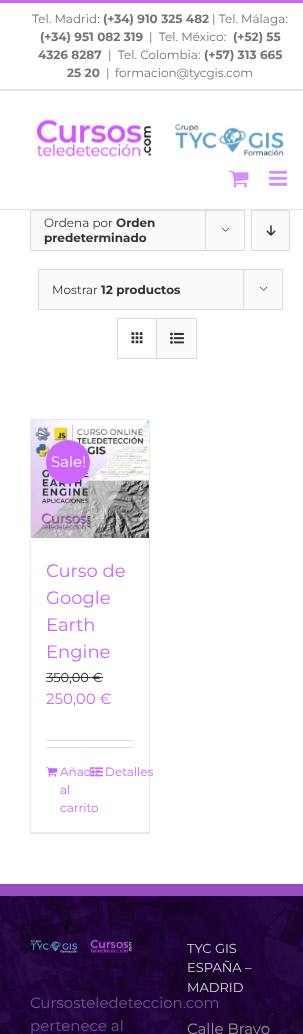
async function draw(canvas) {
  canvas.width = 303
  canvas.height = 1034
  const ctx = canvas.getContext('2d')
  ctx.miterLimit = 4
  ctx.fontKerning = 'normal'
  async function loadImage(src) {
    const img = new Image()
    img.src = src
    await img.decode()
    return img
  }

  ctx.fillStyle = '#fff'
  ctx.fillRect(0, 0, 303, 1034)
  ctx.fillStyle = '#c6f'
  ctx.fillRect(0, 0, 303, 3)
  ctx.fillStyle = '#e5e5e5'
  ctx.fillRect(0, 89, 303, 2)
  ctx.font = '12px Montserrat'
  ctx.fillStyle = '#747474'
  ctx.fillText('Tel. Madrid:', 32, 23)
  ctx.font = 'bold 12px Montserrat'
  ctx.fillText('(+34) 910 325 482', 103, 23)
  ctx.font = '12px Montserrat'
  ctx.fillText('| Tel. Málaga:', 212, 23)
  ctx.font = 'bold 12px Montserrat'
  ctx.fillText('(+34) 951 082 319', 40, 41)
  ctx.font = '12px Montserrat'
  ctx.fillText('|  Tel. México:', 149, 41)
  ctx.font = 'bold 12px Montserrat'
  ctx.fillText('(+52) 55', 233, 41)
  ctx.fillText('4326 8287', 38, 59)
  ctx.font = '12px Montserrat'
  ctx.fillText('|  Tel. Colombia:', 108, 59)
  ctx.font = 'bold 12px Montserrat'
  ctx.fillText('(+57) 313 665', 204, 59)
  ctx.fillText('25 20', 67, 77)
  ctx.font = '12px Montserrat'
  ctx.fillText('|', 106, 77)
  ctx.fillText('formacion@tycgis.com', 115, 77)
  ctx.fillStyle = '#e5e5e5'
  ctx.fillRect(0, 209, 303, 1)
  ctx.drawImage(await loadImage('image0.png'), 36, 119, 248, 38)
  ctx.drawImage(await loadImage('image1.png'), 229, 170, 20, 18)
  ctx.drawImage(await loadImage('image2.png'), 269, 170, 18, 16)
  ctx.fillStyle = '#fbfaf9'
  ctx.beginPath()
  ctx.rect(30.5, 210.5, 214, 40)
  ctx.fill()
  ctx.strokeStyle = '#dbdbdb'
  ctx.stroke()
  ctx.fillStyle = '#333'
  ctx.fillText('Ordena por', 44, 227)
  ctx.font = 'bold 12px Montserrat'
  ctx.fillText('Orden', 116, 227)
  ctx.fillText('predeterminado', 44, 242)
  ctx.fillStyle = '#dbdbdb'
  ctx.fillRect(205, 210, 1, 39)
  ctx.drawImage(await loadImage('image3.png'), 221, 227, 9, 5)
  ctx.fillStyle = '#fbfaf9'
  ctx.beginPath()
  ctx.rect(251.5, 210.5, 38, 40)
  ctx.fill()
  ctx.stroke()
  ctx.drawImage(await loadImage('image4.png'), 266, 225, 10, 11)
  ctx.beginPath()
  ctx.rect(38.5, 269.5, 244, 40)
  ctx.fill()
  ctx.stroke()
  ctx.font = '12px Montserrat'
  ctx.fillStyle = '#333'
  ctx.fillText('Mostrar', 52, 294)
  ctx.font = 'bold 12px Montserrat'
  ctx.fillText('12 productos', 101, 294)
  ctx.fillStyle = '#dbdbdb'
  ctx.fillRect(243, 269, 1, 39)
  ctx.drawImage(await loadImage('image3.png'), 259, 286, 9, 5)
  ctx.strokeRect(117.5, 318.5, 79, 40)
  ctx.fillRect(156, 319, 1, 39)
  ctx.drawImage(await loadImage('image5.png'), 131, 332, 12, 12)
  ctx.fillStyle = '#fbfaf9'
  ctx.fillRect(157, 319, 39, 39)
  ctx.drawImage(await loadImage('image6.png'), 170, 332, 14, 12)
  ctx.fillStyle = '#ebeaea'
  ctx.fillRect(30, 419, 120, 1)
  ctx.fillRect(149, 419, 1, 415)
  ctx.fillRect(30, 832, 120, 2)
  ctx.fillRect(30, 419, 1, 415)
  ctx.drawImage(await loadImage('image7.png'), 31, 420, 118, 118)
  ctx.fillStyle = '#c6f'
  ctx.beginPath()
  ctx.arc(68, 462, 22, 0, 2 * Math.PI)
  ctx.fill()
  ctx.font = '15px Montserrat'
  ctx.fillStyle = '#fff'
  ctx.fillText('Sale!', 51, 467)
  ctx.font = '18px Montserrat'
  ctx.fillStyle = '#c6f'
  ctx.fillText('Curso de', 46, 577)
  ctx.fillText('Google', 46, 604)
  ctx.fillText('Earth', 46, 631)
  ctx.fillText('Engine', 46, 658)
  ctx.font = '13px Montserrat'
  ctx.fillStyle = '#2c2c2c'
  ctx.fillText('350,00 €', 46, 682)
  ctx.fillRect(46, 677, 57, 1)
  ctx.font = '15px Montserrat'
  ctx.fillStyle = '#c6f'
  ctx.fillText('250,00 €', 46, 704)
  ctx.fillStyle = '#e0dede'
  ctx.fillRect(46, 740, 88, 1)
  ctx.fillRect(46, 747, 88, 1)
  ctx.drawImage(await loadImage('image8.png'), 46, 767, 12, 10)
  ctx.font = '12px Montserrat'
  ctx.fillStyle = '#c6f'
  ctx.fillText('Añadir', 60, 776)
  ctx.fillText('al', 60, 794)
  ctx.fillText('carrito', 60, 812)
  ctx.drawImage(await loadImage('image9.png'), 91, 767, 12, 10)
  ctx.fillText('Detalles', 105, 776)
  ctx.drawImage(await loadImage('image10.png'), 0, 896, 303, 138)
  ctx.fillStyle = '#994dc0'
  ctx.fillRect(0, 884, 303, 12)
  ctx.drawImage(await loadImage('image11.png'), 30, 939, 102, 14)
  ctx.font = '15px Montserrat'
  ctx.fillStyle = '#715696'
  ctx.fillText('Cursosteledeteccion.com', 30, 1008)
  ctx.fillText('pertenece al', 30, 1031)
  ctx.font = '13px Montserrat'
  ctx.fillStyle = '#ddd'
  ctx.fillText('TYC GIS', 187, 953)
  ctx.fillText('ESPAÑA –', 187, 972)
  ctx.fillText('MADRID', 187, 992)
  ctx.font = '15px Montserrat'
  ctx.fillStyle = '#989898'
  ctx.fillText('Calle Bravo', 187, 1034)
}

draw(document.querySelector('canvas'))
